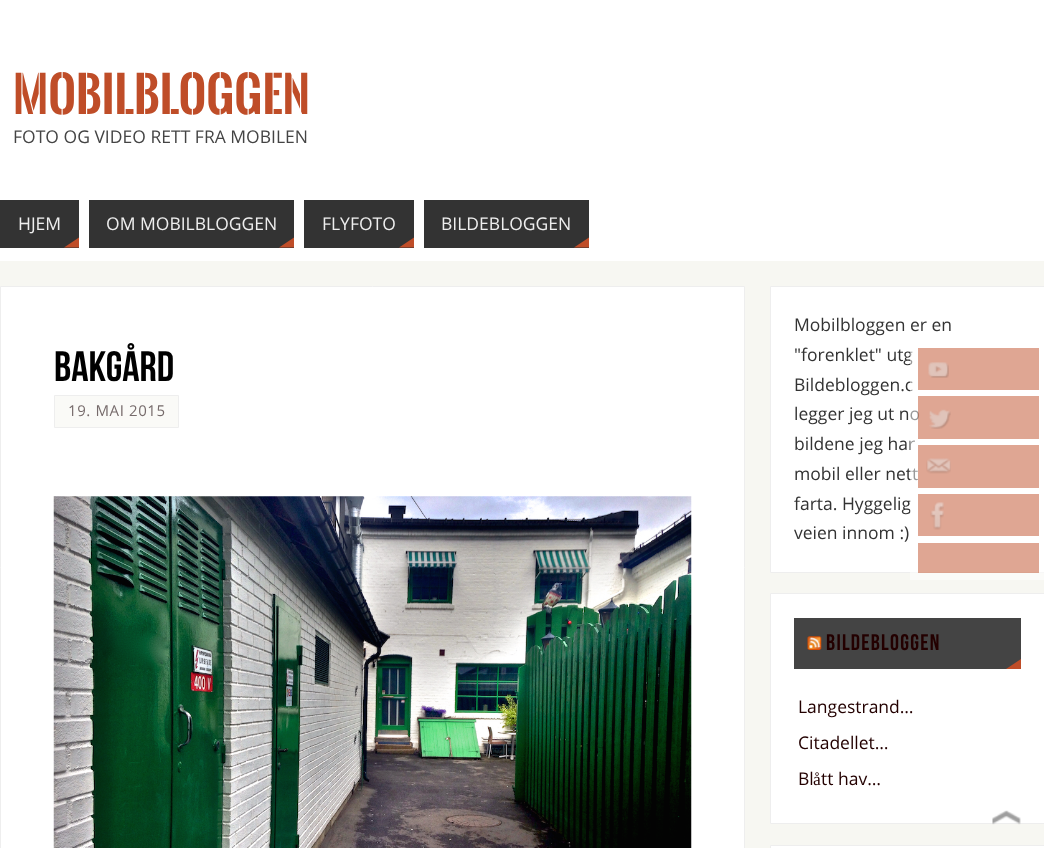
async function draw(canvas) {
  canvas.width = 1044
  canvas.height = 848
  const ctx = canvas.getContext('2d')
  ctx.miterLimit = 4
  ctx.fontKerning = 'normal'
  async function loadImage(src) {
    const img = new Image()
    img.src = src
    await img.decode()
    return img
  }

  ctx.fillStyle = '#f7f7f2'
  ctx.fillRect(0, 0, 1044, 848)
  ctx.fillStyle = '#fff'
  ctx.fillRect(0, 0, 1044, 261)
  ctx.font = 'bold 47.5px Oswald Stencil'
  ctx.fillStyle = '#bf4d28'
  ctx.fillText('MOBILBLOGGEN', 13, 114)
  ctx.font = '17.5px Open Sans'
  ctx.fillStyle = '#444'
  ctx.fillText('FOTO OG VIDEO RETT FRA MOBILEN', 13, 143)
  ctx.fillStyle = '#333'
  ctx.fillRect(0, 200, 79, 48)
  ctx.fillStyle = '#eee'
  ctx.fillText('HJEM', 18, 230)
  ctx.fillStyle = '#bf4d28'
  ctx.beginPath()
  ctx.moveTo(79, 247.5)
  ctx.lineTo(64, 247.5)
  ctx.lineTo(79, 237.5)
  ctx.closePath()
  ctx.fill()
  ctx.fillStyle = '#333'
  ctx.fillRect(89, 200, 205, 48)
  ctx.fillStyle = '#eee'
  ctx.fillText('OM MOBILBLOGGEN', 106, 230)
  ctx.fillStyle = '#bf4d28'
  ctx.beginPath()
  ctx.moveTo(294, 247.5)
  ctx.lineTo(279, 247.5)
  ctx.lineTo(294, 237.5)
  ctx.closePath()
  ctx.fill()
  ctx.fillStyle = '#333'
  ctx.fillRect(304, 200, 110, 48)
  ctx.fillStyle = '#eee'
  ctx.fillText('FLYFOTO', 322, 230)
  ctx.fillStyle = '#bf4d28'
  ctx.beginPath()
  ctx.moveTo(414, 247.5)
  ctx.lineTo(399, 247.5)
  ctx.lineTo(414, 237.5)
  ctx.closePath()
  ctx.fill()
  ctx.fillStyle = '#333'
  ctx.fillRect(424, 200, 165, 48)
  ctx.fillStyle = '#eee'
  ctx.fillText('BILDEBLOGGEN', 441, 230)
  ctx.fillStyle = '#bf4d28'
  ctx.beginPath()
  ctx.moveTo(589, 247.5)
  ctx.lineTo(574, 247.5)
  ctx.lineTo(589, 237.5)
  ctx.closePath()
  ctx.fill()
  ctx.fillStyle = '#fff'
  ctx.beginPath()
  ctx.rect(0.5, 286.5, 744, 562)
  ctx.fill()
  ctx.strokeStyle = '#eee'
  ctx.stroke()
  ctx.font = '42.5px Bebas Neue'
  ctx.fillStyle = '#000'
  ctx.fillText('Bakgård', 54, 381)
  ctx.fillStyle = '#fafaf7'
  ctx.beginPath()
  ctx.rect(54.5, 395.5, 124, 32)
  ctx.fill()
  ctx.stroke()
  ctx.letterSpacing = '0.6px'
  ctx.font = '15px Open Sans'
  ctx.fillStyle = '#766b6b'
  ctx.fillText('19. MAI 2015', 68, 416)
  ctx.drawImage(await loadImage('image0.png'), 53, 496, 639, 352)
  ctx.fillStyle = '#fff'
  ctx.beginPath()
  ctx.rect(770.5, 286.5, 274, 286)
  ctx.fill()
  ctx.stroke()
  ctx.letterSpacing = '0px'
  ctx.font = '17.5px Open Sans'
  ctx.fillStyle = '#333'
  ctx.fillText('Mobilbloggen er en', 794, 331)
  ctx.fillText('"forenklet" utg', 794, 361)
  ctx.fillText('Bildebloggen.c', 794, 391)
  ctx.fillText('legger jeg ut no', 794, 420)
  ctx.fillText('bildene jeg har', 794, 450)
  ctx.fillText('mobil eller nett', 794, 480)
  ctx.fillText('farta. Hyggelig', 794, 510)
  ctx.fillText('veien innom :)', 794, 539)
  ctx.fillStyle = '#fff'
  ctx.beginPath()
  ctx.rect(770.5, 593.5, 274, 230)
  ctx.fill()
  ctx.stroke()
  ctx.fillStyle = '#444'
  ctx.fillRect(794, 618, 227, 51)
  ctx.drawImage(await loadImage('image1.png'), 807, 636, 15, 14)
  ctx.letterSpacing = '1.25px'
  ctx.font = '22.5px Bebas Neue'
  ctx.fillStyle = '#230000'
  ctx.fillText('BILDEBLOGGEN', 826, 650)
  ctx.fillStyle = '#bf4d28'
  ctx.beginPath()
  ctx.moveTo(1021, 669)
  ctx.lineTo(1006, 669)
  ctx.lineTo(1021, 659)
  ctx.closePath()
  ctx.fill()
  ctx.letterSpacing = '0px'
  ctx.font = '17.5px Open Sans'
  ctx.fillStyle = '#230000'
  ctx.fillText('Langestrand…', 798, 713)
  ctx.fillText('Citadellet…', 798, 749)
  ctx.fillText('Bl', 798, 785)
  ctx.font = '17.5px Liberation Serif'
  ctx.fillText('å', 813, 785)
  ctx.font = '17.5px Open Sans'
  ctx.fillText('tt hav…', 821, 785)
  ctx.fillStyle = '#fff'
  ctx.beginPath()
  ctx.rect(770.5, 845.5, 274, 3)
  ctx.fill()
  ctx.stroke()
  ctx.fillStyle = '#ffffff80'
  ctx.fillRect(910, 351, 134, 229)
  ctx.fillStyle = '#bf4d2880'
  ctx.fillRect(918, 348, 121, 42)
  ctx.drawImage(await loadImage('image2.png'), 928, 362, 21, 16)
  ctx.fillRect(918, 396, 121, 43)
  ctx.drawImage(await loadImage('image3.png'), 929, 409, 22, 20)
  ctx.fillRect(918, 445, 121, 43)
  ctx.drawImage(await loadImage('image4.png'), 926, 458, 25, 16)
  ctx.fillRect(918, 494, 121, 42)
  ctx.drawImage(await loadImage('image5.png'), 930, 502, 14, 28)
  ctx.fillRect(918, 543, 121, 30)
  ctx.drawImage(await loadImage('image6.png'), 992, 810, 29, 15)
}

draw(document.querySelector('canvas'))
